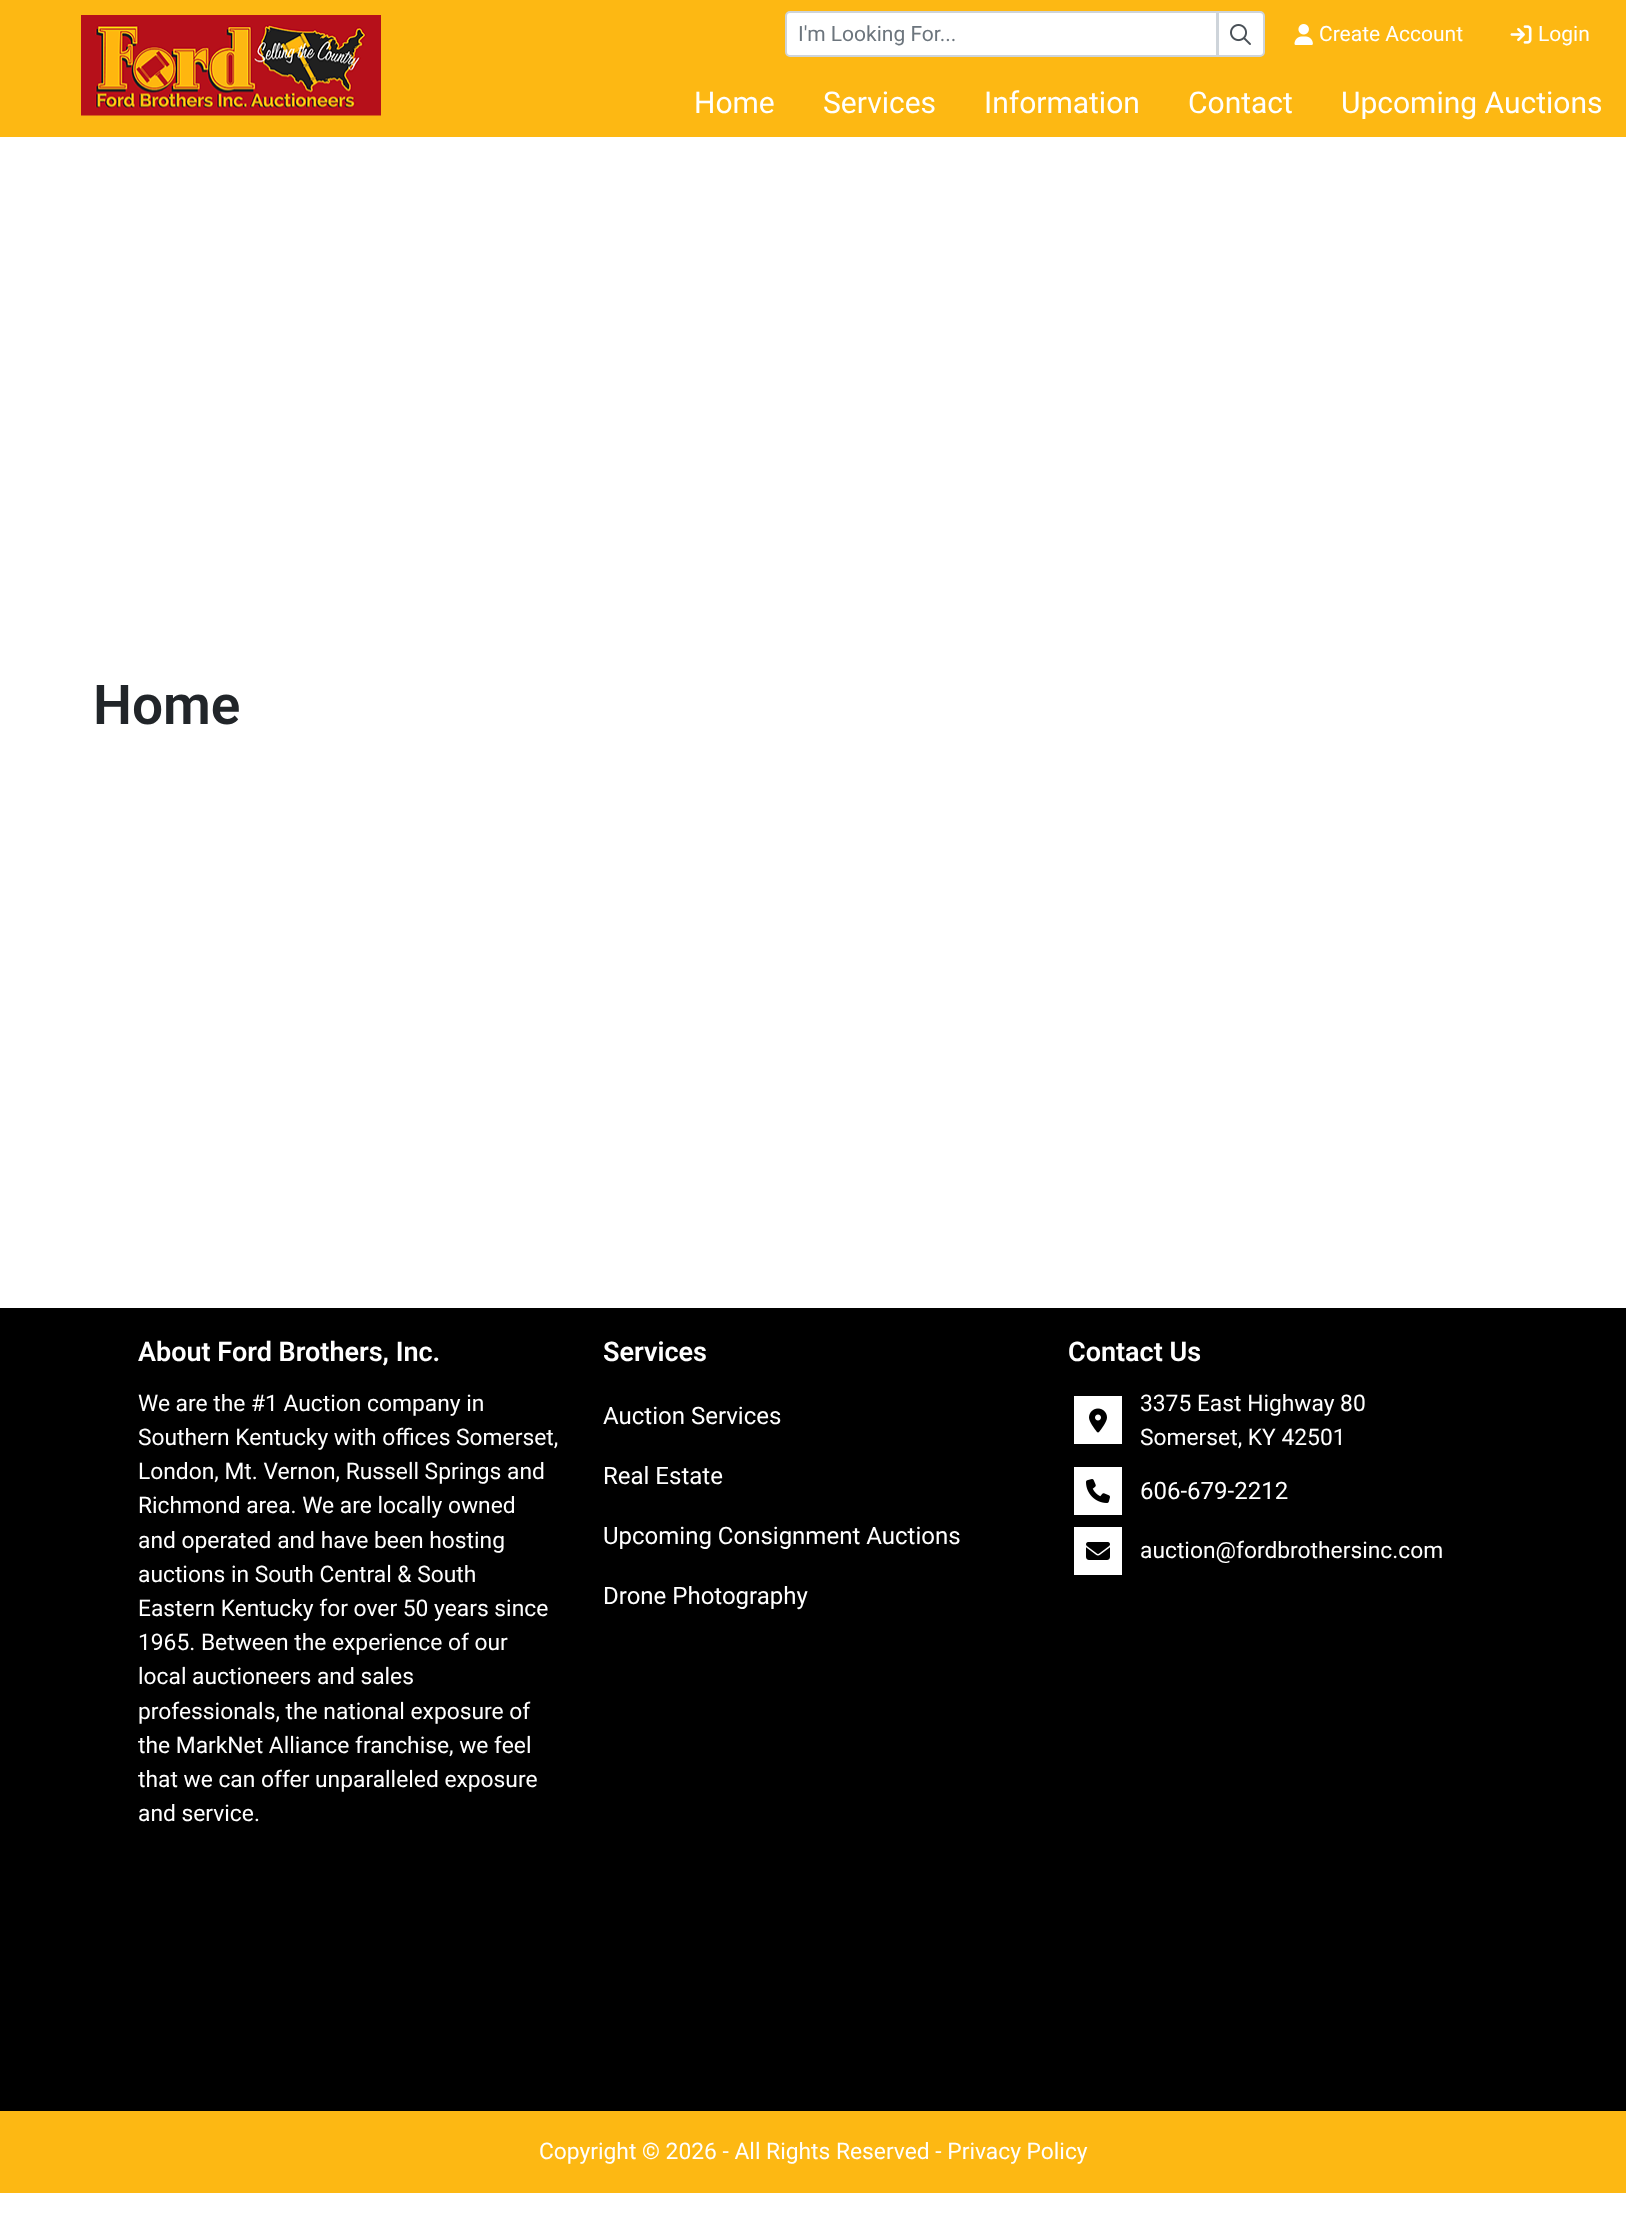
async function draw(canvas) {
  canvas.width = 1626
  canvas.height = 2213
  const ctx = canvas.getContext('2d')
  ctx.miterLimit = 4
  ctx.fontKerning = 'normal'
  async function loadImage(src) {
    const img = new Image()
    img.src = src
    await img.decode()
    return img
  }

  ctx.fillStyle = '#fff'
  ctx.fillRect(0, 0, 1626, 2213)
  ctx.fillStyle = '#fdb813'
  ctx.fillRect(0, 0, 1626, 137)
  ctx.drawImage(await loadImage('image0.png'), 81, 15, 300, 101)
  ctx.fillStyle = '#fff'
  ctx.beginPath()
  ctx.roundRect(1218, 12, 46, 44, [0, 4, 4, 0])
  ctx.fill()
  ctx.strokeStyle = '#ced4da'
  ctx.lineWidth = 2
  ctx.stroke()
  ctx.beginPath()
  ctx.roundRect(786, 12, 431, 44, [4, 0, 0, 4])
  ctx.fill()
  ctx.stroke()
  ctx.font = '21px Roboto'
  ctx.fillStyle = '#6c757d'
  ctx.fillText('I\'m Looking For...', 798, 41)
  ctx.drawImage(await loadImage('image1.png'), 1230, 24, 21, 21)
  ctx.drawImage(await loadImage('image2.png'), 1294, 24, 19, 21)
  ctx.fillStyle = '#fff'
  ctx.fillText('Create Account', 1319, 41)
  ctx.drawImage(await loadImage('image3.png'), 1510, 25, 22, 19)
  ctx.fillText('Login', 1538, 41)
  ctx.font = '30px Roboto'
  ctx.fillText('Home', 694, 113)
  ctx.fillText('Services', 823, 113)
  ctx.fillText('Information', 984, 113)
  ctx.fillText('Contact', 1188, 113)
  ctx.fillText('Upcoming Auctions', 1341, 113)
  ctx.font = '600 55px Roboto'
  ctx.fillStyle = '#212529'
  ctx.fillText('Home', 93, 724)
  ctx.fillStyle = '#000'
  ctx.fillRect(0, 1308, 1626, 803)
  ctx.font = '600 27px Roboto'
  ctx.fillStyle = '#fff'
  ctx.fillText('About Ford Brothers, Inc.', 138, 1361)
  ctx.font = '22.8px Roboto'
  ctx.fillText('We are the #1 Auction company in', 138, 1411)
  ctx.fillText('Southern Kentucky with offices Somerset,', 138, 1445)
  ctx.fillText('London, Mt. Vernon, Russell Springs and', 138, 1479)
  ctx.fillText('Richmond area. We are locally owned', 138, 1513)
  ctx.fillText('and operated and have been hosting', 138, 1548)
  ctx.fillText('auctions in South Central & South', 138, 1582)
  ctx.fillText('Eastern Kentucky for over 50 years since', 138, 1616)
  ctx.fillText('1965. Between the experience of our', 138, 1650)
  ctx.fillText('local auctioneers and sales', 138, 1684)
  ctx.fillText('professionals, the national exposure of', 138, 1719)
  ctx.fillText('the MarkNet Alliance franchise, we feel', 138, 1753)
  ctx.fillText('that we can offer unparalleled exposure', 138, 1787)
  ctx.fillText('and service.', 138, 1821)
  ctx.font = '600 27px Roboto'
  ctx.fillText('Services', 603, 1361)
  ctx.font = '24px Roboto'
  ctx.fillText('Auction Services', 603, 1424)
  ctx.fillText('Real Estate', 603, 1484)
  ctx.fillText('Upcoming Consignment Auctions', 603, 1544)
  ctx.fillText('Drone Photography', 603, 1604)
  ctx.font = '600 27px Roboto'
  ctx.fillText('Contact Us', 1068, 1361)
  ctx.fillRect(1074, 1396, 48, 48)
  ctx.drawImage(await loadImage('image4.png'), 1089, 1408, 18, 25)
  ctx.font = '22.8px Roboto'
  ctx.fillText('3375 East Highway 80', 1140, 1411)
  ctx.fillText('Somerset, KY 42501', 1140, 1445)
  ctx.fillRect(1074, 1467, 48, 48)
  ctx.drawImage(await loadImage('image5.png'), 1086, 1479, 24, 24)
  ctx.font = '24px Roboto'
  ctx.fillText('606-679-2212', 1140, 1499)
  ctx.fillRect(1074, 1527, 48, 48)
  ctx.drawImage(await loadImage('image6.png'), 1086, 1542, 24, 18)
  ctx.font = '22.8px Roboto'
  ctx.fillText('auction@fordbrothersinc.com', 1140, 1558)
  ctx.fillStyle = '#fdb813'
  ctx.fillRect(0, 2111, 1626, 82)
  ctx.fillStyle = '#fff'
  ctx.fillText('Copyright © 2026 - All Rights Reserved - Privacy Policy', 539, 2159)
}

draw(document.querySelector('canvas'))
